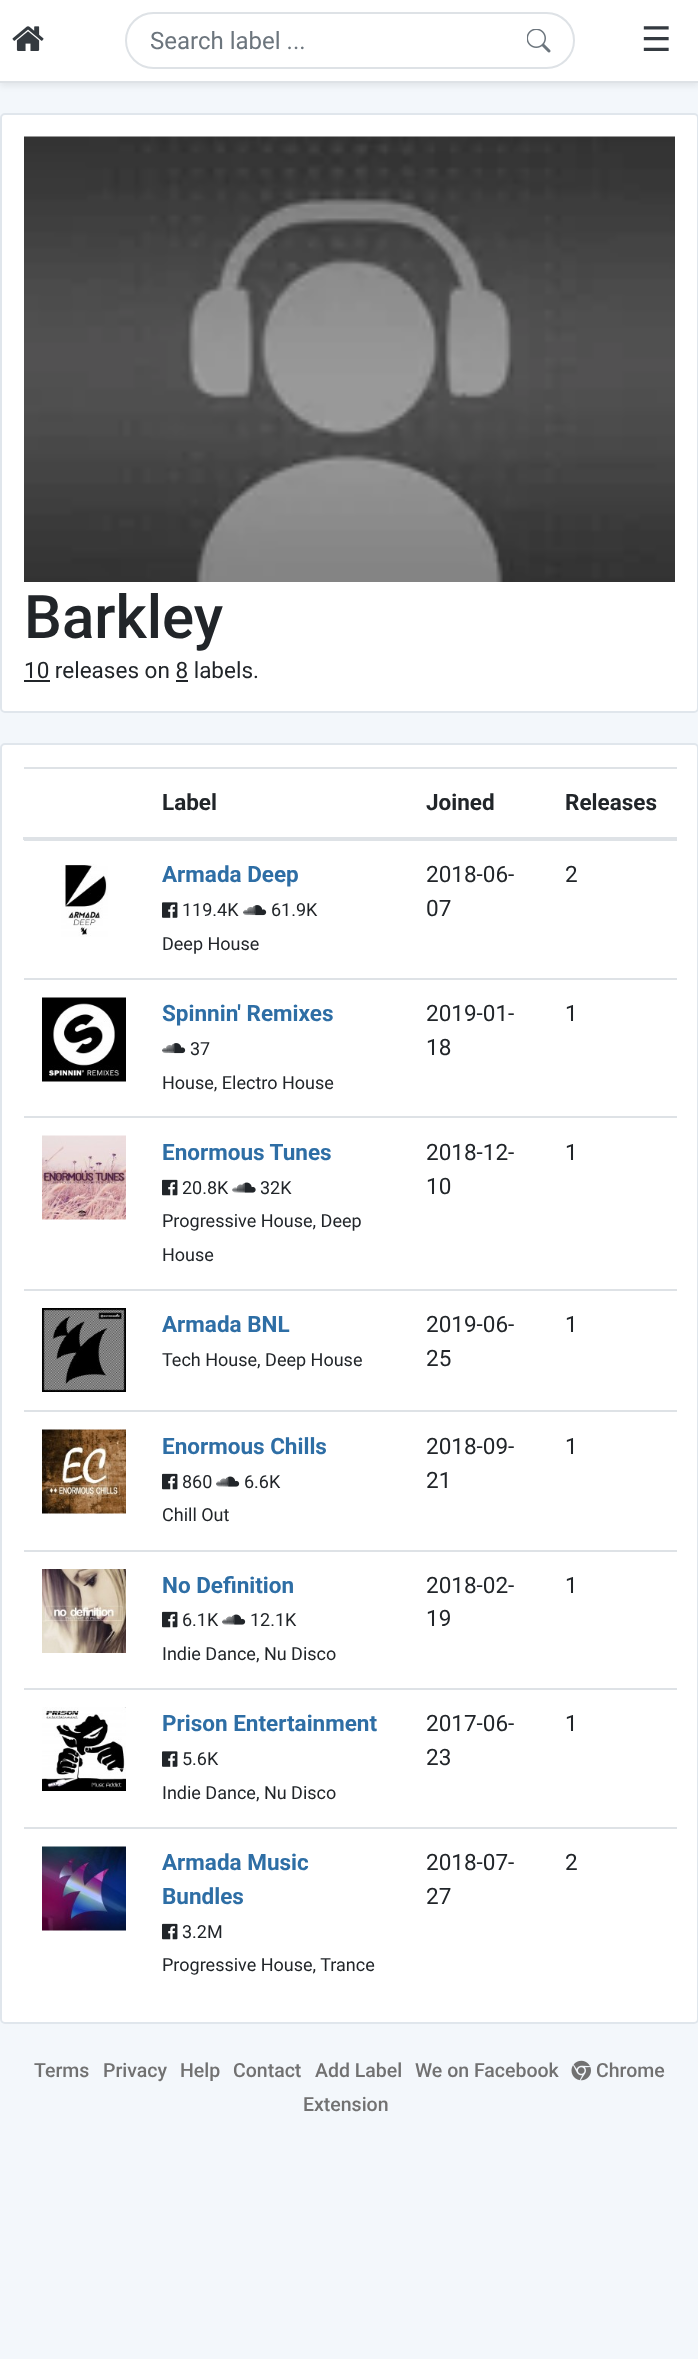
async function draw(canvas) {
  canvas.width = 698
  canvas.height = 2359
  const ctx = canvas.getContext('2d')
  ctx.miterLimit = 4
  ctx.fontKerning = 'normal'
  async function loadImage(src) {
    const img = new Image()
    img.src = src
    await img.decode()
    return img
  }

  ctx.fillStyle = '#f3f7fb'
  ctx.fillRect(0, 0, 698, 2359)
  ctx.fillStyle = '#00000012'
  ctx.filter = 'blur(3px)'
  ctx.beginPath()
  ctx.rect(0, 3, 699, 83)
  ctx.fill()
  ctx.filter = 'none'
  ctx.fillStyle = '#fff'
  ctx.fillRect(0, 0, 698, 81)
  ctx.fillStyle = '#dee2e6'
  ctx.fillRect(0, 81, 698, 2)
  ctx.drawImage(await loadImage('image0.png'), 12, 26, 32, 25)
  ctx.beginPath()
  ctx.roundRect(126, 13, 448, 55, 27.5)
  ctx.strokeStyle = '#dee2e6'
  ctx.lineWidth = 2
  ctx.stroke()
  ctx.font = '24px Roboto'
  ctx.fillStyle = '#6c757d'
  ctx.fillText('Search label ...', 150, 49)
  ctx.drawImage(await loadImage('image1.png'), 527, 29, 24, 24)
  ctx.font = '34px DejaVu Sans'
  ctx.fillStyle = '#343a40'
  ctx.fillText('☰', 641, 51)
  ctx.fillStyle = '#fff'
  ctx.beginPath()
  ctx.roundRect(1, 114, 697, 598, 4)
  ctx.fill()
  ctx.strokeStyle = '#e0e6ec'
  ctx.stroke()
  ctx.drawImage(await loadImage('image2.png'), 24, 136, 651, 446)
  ctx.font = '500 60px Roboto'
  ctx.fillStyle = '#212529'
  ctx.fillText('Barkley', 24, 638)
  ctx.font = '22.5px Roboto'
  ctx.fillText('10 releases on 8 labels.', 24, 678)
  ctx.fillRect(24, 680, 26, 2)
  ctx.fillRect(176, 680, 12, 2)
  ctx.fillStyle = '#fff'
  ctx.beginPath()
  ctx.roundRect(1, 744, 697, 1279, 4)
  ctx.fill()
  ctx.stroke()
  ctx.font = 'bold 22.5px Roboto'
  ctx.fillStyle = '#212529'
  ctx.fillText('Label', 162, 810)
  ctx.fillText('Joined', 426, 810)
  ctx.fillStyle = '#dee2e6'
  ctx.fillRect(24, 767, 653, 2)
  ctx.fillRect(23, 837, 654, 3)
  ctx.fillStyle = '#212529'
  ctx.fillText('Releases', 565, 810)
  ctx.drawImage(await loadImage('image3.png'), 61, 864, 47, 73)
  ctx.fillStyle = '#2e6ea5'
  ctx.fillText('Armada Deep', 162, 882)
  ctx.drawImage(await loadImage('image4.png'), 162, 902, 16, 16)
  ctx.font = '18px Roboto'
  ctx.fillStyle = '#212529'
  ctx.fillText('119.4K', 182, 916)
  ctx.drawImage(await loadImage('image5.png'), 243, 905, 24, 11)
  ctx.fillText('61.9K', 271, 916)
  ctx.fillText('Deep House', 162, 950)
  ctx.font = '22.5px Roboto'
  ctx.fillText('2018-06-', 426, 882)
  ctx.fillText('07', 426, 916)
  ctx.fillStyle = '#dee2e6'
  ctx.fillRect(24, 840, 653, 1)
  ctx.fillStyle = '#212529'
  ctx.fillText('2', 565, 882)
  ctx.drawImage(await loadImage('image6.png'), 42, 997, 84, 85)
  ctx.font = 'bold 22.5px Roboto'
  ctx.fillStyle = '#2e6ea5'
  ctx.fillText('Spinnin\' Remixes', 162, 1021)
  ctx.drawImage(await loadImage('image5.png'), 162, 1043, 24, 11)
  ctx.font = '18px Roboto'
  ctx.fillStyle = '#212529'
  ctx.fillText('37', 190, 1055)
  ctx.fillText('House, Electro House', 162, 1089)
  ctx.font = '22.5px Roboto'
  ctx.fillText('2019-01-', 426, 1021)
  ctx.fillText('18', 426, 1055)
  ctx.fillStyle = '#dee2e6'
  ctx.fillRect(24, 978, 653, 2)
  ctx.fillStyle = '#212529'
  ctx.fillText('1', 565, 1021)
  ctx.drawImage(await loadImage('image7.png'), 42, 1135, 84, 85)
  ctx.font = 'bold 22.5px Roboto'
  ctx.fillStyle = '#2e6ea5'
  ctx.fillText('Enormous Tunes', 162, 1160)
  ctx.drawImage(await loadImage('image8.png'), 162, 1179, 16, 17)
  ctx.font = '18px Roboto'
  ctx.fillStyle = '#212529'
  ctx.fillText('20.8K', 182, 1194)
  ctx.drawImage(await loadImage('image9.png'), 232, 1182, 24, 11)
  ctx.fillText('32K', 260, 1194)
  ctx.fillText('Progressive House, Deep', 162, 1227)
  ctx.fillText('House', 162, 1261)
  ctx.font = '22.5px Roboto'
  ctx.fillText('2018-12-', 426, 1160)
  ctx.fillText('10', 426, 1194)
  ctx.fillStyle = '#dee2e6'
  ctx.fillRect(24, 1116, 653, 2)
  ctx.fillStyle = '#212529'
  ctx.fillText('1', 565, 1160)
  ctx.drawImage(await loadImage('image10.png'), 42, 1308, 84, 84)
  ctx.font = 'bold 22.5px Roboto'
  ctx.fillStyle = '#2e6ea5'
  ctx.fillText('Armada BNL', 162, 1332)
  ctx.font = '18px Roboto'
  ctx.fillStyle = '#212529'
  ctx.fillText('Tech House, Deep House', 162, 1366)
  ctx.font = '22.5px Roboto'
  ctx.fillText('2019-06-', 426, 1332)
  ctx.fillText('25', 426, 1366)
  ctx.fillStyle = '#dee2e6'
  ctx.fillRect(24, 1289, 653, 2)
  ctx.fillStyle = '#212529'
  ctx.fillText('1', 565, 1332)
  ctx.drawImage(await loadImage('image11.png'), 42, 1429, 84, 85)
  ctx.font = 'bold 22.5px Roboto'
  ctx.fillStyle = '#2e6ea5'
  ctx.fillText('Enormous Chills', 162, 1454)
  ctx.drawImage(await loadImage('image8.png'), 162, 1473, 16, 17)
  ctx.font = '18px Roboto'
  ctx.fillStyle = '#212529'
  ctx.fillText('860', 182, 1488)
  ctx.drawImage(await loadImage('image12.png'), 216, 1476, 24, 11)
  ctx.fillText('6.6K', 244, 1488)
  ctx.fillText('Chill Out', 162, 1521)
  ctx.font = '22.5px Roboto'
  ctx.fillText('2018-09-', 426, 1454)
  ctx.fillText('21', 426, 1488)
  ctx.fillStyle = '#dee2e6'
  ctx.fillRect(24, 1410, 653, 2)
  ctx.fillStyle = '#212529'
  ctx.fillText('1', 565, 1454)
  ctx.drawImage(await loadImage('image13.png'), 42, 1569, 84, 84)
  ctx.font = 'bold 22.5px Roboto'
  ctx.fillStyle = '#2e6ea5'
  ctx.fillText('No Definition', 162, 1593)
  ctx.drawImage(await loadImage('image8.png'), 162, 1611, 16, 17)
  ctx.font = '18px Roboto'
  ctx.fillStyle = '#212529'
  ctx.fillText('6.1K', 182, 1626)
  ctx.drawImage(await loadImage('image12.png'), 222, 1614, 24, 11)
  ctx.fillText('12.1K', 250, 1626)
  ctx.fillText('Indie Dance, Nu Disco', 162, 1660)
  ctx.font = '22.5px Roboto'
  ctx.fillText('2018-02-', 426, 1593)
  ctx.fillText('19', 426, 1626)
  ctx.fillStyle = '#dee2e6'
  ctx.fillRect(24, 1550, 653, 2)
  ctx.fillStyle = '#212529'
  ctx.fillText('1', 565, 1593)
  ctx.drawImage(await loadImage('image14.png'), 42, 1707, 84, 84)
  ctx.font = 'bold 22.5px Roboto'
  ctx.fillStyle = '#2e6ea5'
  ctx.fillText('Prison Entertainment', 162, 1731)
  ctx.drawImage(await loadImage('image4.png'), 162, 1751, 16, 16)
  ctx.font = '18px Roboto'
  ctx.fillStyle = '#212529'
  ctx.fillText('5.6K', 182, 1765)
  ctx.fillText('Indie Dance, Nu Disco', 162, 1799)
  ctx.font = '22.5px Roboto'
  ctx.fillText('2017-06-', 426, 1731)
  ctx.fillText('23', 426, 1765)
  ctx.fillStyle = '#dee2e6'
  ctx.fillRect(24, 1688, 653, 2)
  ctx.fillStyle = '#212529'
  ctx.fillText('1', 565, 1731)
  ctx.drawImage(await loadImage('image15.png'), 42, 1846, 84, 85)
  ctx.font = 'bold 22.5px Roboto'
  ctx.fillStyle = '#2e6ea5'
  ctx.fillText('Armada Music', 162, 1870)
  ctx.fillText('Bundles', 162, 1904)
  ctx.drawImage(await loadImage('image8.png'), 162, 1923, 16, 17)
  ctx.font = '18px Roboto'
  ctx.fillStyle = '#212529'
  ctx.fillText('3.2M', 182, 1938)
  ctx.fillText('Progressive House, Trance', 162, 1971)
  ctx.font = '22.5px Roboto'
  ctx.fillText('2018-07-', 426, 1870)
  ctx.fillText('27', 426, 1904)
  ctx.fillStyle = '#dee2e6'
  ctx.fillRect(24, 1827, 653, 2)
  ctx.fillStyle = '#212529'
  ctx.fillText('2', 565, 1870)
  ctx.font = '500 19.5px Roboto'
  ctx.fillStyle = '#717171'
  ctx.fillText('Privacy', 103, 2077)
  ctx.fillText('Help', 180, 2077)
  ctx.fillText('Contact', 233, 2077)
  ctx.drawImage(await loadImage('image16.png'), 571, 2060, 20, 21)
  ctx.fillText('Chrome', 596, 2077)
  ctx.fillText('Extension', 303, 2111)
  ctx.fillText('Terms', 34, 2077)
  ctx.fillText('Add Label', 315, 2077)
  ctx.fillText('We on Facebook', 415, 2077)
}

draw(document.querySelector('canvas'))
